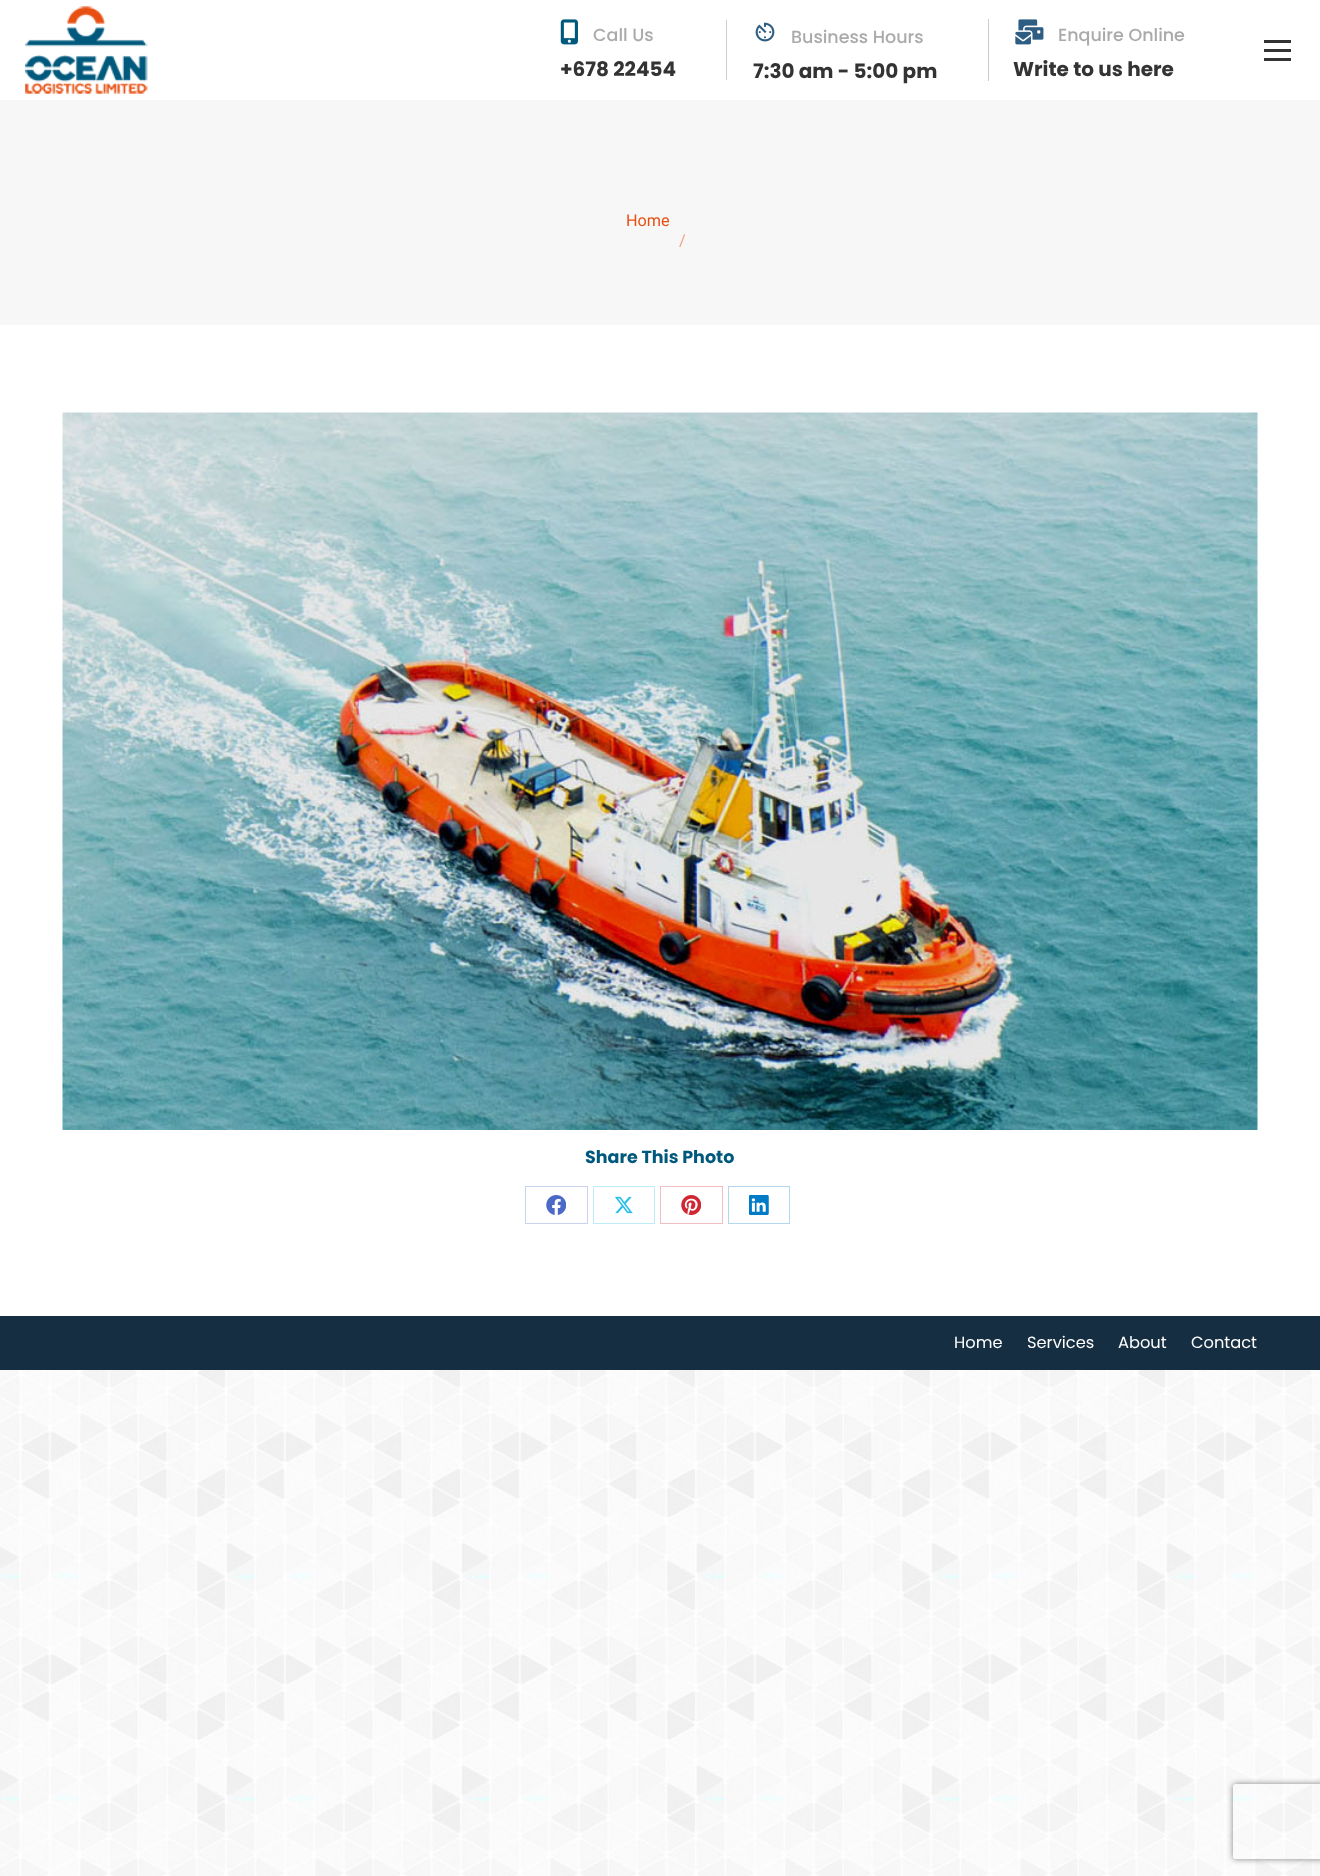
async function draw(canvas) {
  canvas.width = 1320
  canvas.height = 1876
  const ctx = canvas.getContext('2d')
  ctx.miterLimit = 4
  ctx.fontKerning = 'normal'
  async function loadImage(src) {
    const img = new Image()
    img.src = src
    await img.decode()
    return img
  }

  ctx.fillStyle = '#fff'
  ctx.fillRect(0, 0, 1320, 1876)
  ctx.drawImage(await loadImage('image0.png'), 0, 1370, 1320, 506)
  ctx.drawImage(await loadImage('image1.png'), 25, 6, 123, 88)
  ctx.fillStyle = '#ccc'
  ctx.fillRect(726, 20, 1, 60)
  ctx.drawImage(await loadImage('image2.png'), 560, 19, 18, 26)
  ctx.font = '500 17.5px Poppins'
  ctx.fillStyle = '#aaa'
  ctx.fillText('Call Us', 593, 41)
  ctx.font = 'bold 20px Poppins'
  ctx.fillStyle = '#333'
  ctx.fillText('+678 22454', 560, 76)
  ctx.fillStyle = '#ccc'
  ctx.fillRect(988, 19, 1, 62)
  ctx.drawImage(await loadImage('image3.png'), 755, 22, 20, 20)
  ctx.font = '500 17.5px Poppins'
  ctx.fillStyle = '#aaa'
  ctx.fillText('Business Hours', 791, 43)
  ctx.font = 'bold 20px Poppins'
  ctx.fillStyle = '#333'
  ctx.fillText('7:30 am - 5:00 pm', 753, 78)
  ctx.drawImage(await loadImage('image4.png'), 1015, 19, 29, 26)
  ctx.font = '500 17.5px Poppins'
  ctx.fillStyle = '#aaa'
  ctx.fillText('Enquire Online', 1058, 41)
  ctx.font = 'bold 20px Poppins'
  ctx.fillStyle = '#333'
  ctx.fillText('Write to us here', 1013, 76)
  ctx.fillRect(1264, 40, 27, 3)
  ctx.fillRect(1264, 49, 27, 3)
  ctx.fillRect(1264, 58, 27, 3)
  ctx.fillStyle = '#f7f7f7'
  ctx.fillRect(0, 100, 1320, 225)
  ctx.drawImage(await loadImage('image5.png'), 35, 294, 1, 1)
  ctx.font = '16.25px Roboto'
  ctx.fillStyle = '#e75012'
  ctx.fillText('Home', 626, 226)
  ctx.fillStyle = '#efa384'
  ctx.fillText('/', 679, 246)
  ctx.drawImage(await loadImage('image6.png'), 62, 412, 1196, 718)
  ctx.font = 'bold 17.5px Poppins'
  ctx.fillStyle = '#00597c'
  ctx.fillText('Share This Photo', 585, 1163)
  ctx.strokeStyle = '#c9d2ee'
  ctx.strokeRect(525.5, 1186.5, 62, 37)
  ctx.drawImage(await loadImage('image7.png'), 546, 1195, 20, 20)
  ctx.strokeStyle = '#bfecf9'
  ctx.strokeRect(593.5, 1186.5, 61, 37)
  ctx.drawImage(await loadImage('image8.png'), 615, 1196, 18, 18)
  ctx.strokeStyle = '#f1bfc2'
  ctx.strokeRect(660.5, 1186.5, 62, 37)
  ctx.drawImage(await loadImage('image9.png'), 681, 1195, 20, 20)
  ctx.strokeStyle = '#b3d7ee'
  ctx.strokeRect(728.5, 1186.5, 61, 37)
  ctx.drawImage(await loadImage('image10.png'), 749, 1195, 20, 20)
  ctx.fillStyle = '#162e41'
  ctx.fillRect(0, 1316, 1320, 54)
  ctx.font = '16.25px Poppins'
  ctx.fillStyle = '#fff'
  ctx.fillText('Home', 954, 1348)
  ctx.fillText('Services', 1027, 1348)
  ctx.fillText('About', 1118, 1348)
  ctx.fillText('Contact', 1191, 1348)
  ctx.save()
  ctx.beginPath()
  ctx.moveTo(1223, 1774)
  ctx.lineTo(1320, 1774)
  ctx.lineTo(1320, 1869)
  ctx.lineTo(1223, 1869)
  ctx.closePath()
  ctx.moveTo(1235.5, 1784)
  ctx.lineTo(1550.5, 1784)
  ctx.bezierCurveTo(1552, 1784, 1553, 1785, 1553, 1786.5)
  ctx.lineTo(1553, 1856.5)
  ctx.bezierCurveTo(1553, 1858, 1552, 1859, 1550.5, 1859)
  ctx.lineTo(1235.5, 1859)
  ctx.bezierCurveTo(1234, 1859, 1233, 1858, 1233, 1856.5)
  ctx.lineTo(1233, 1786.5)
  ctx.bezierCurveTo(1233, 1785, 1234, 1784, 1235.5, 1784)
  ctx.closePath()
  ctx.clip('evenodd')
  ctx.fillStyle = '#808080'
  ctx.filter = 'blur(3px)'
  ctx.beginPath()
  ctx.roundRect(1233, 1784, 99, 75, 2.5)
  ctx.fill()
  ctx.filter = 'none'
  ctx.restore()
}

draw(document.querySelector('canvas'))
